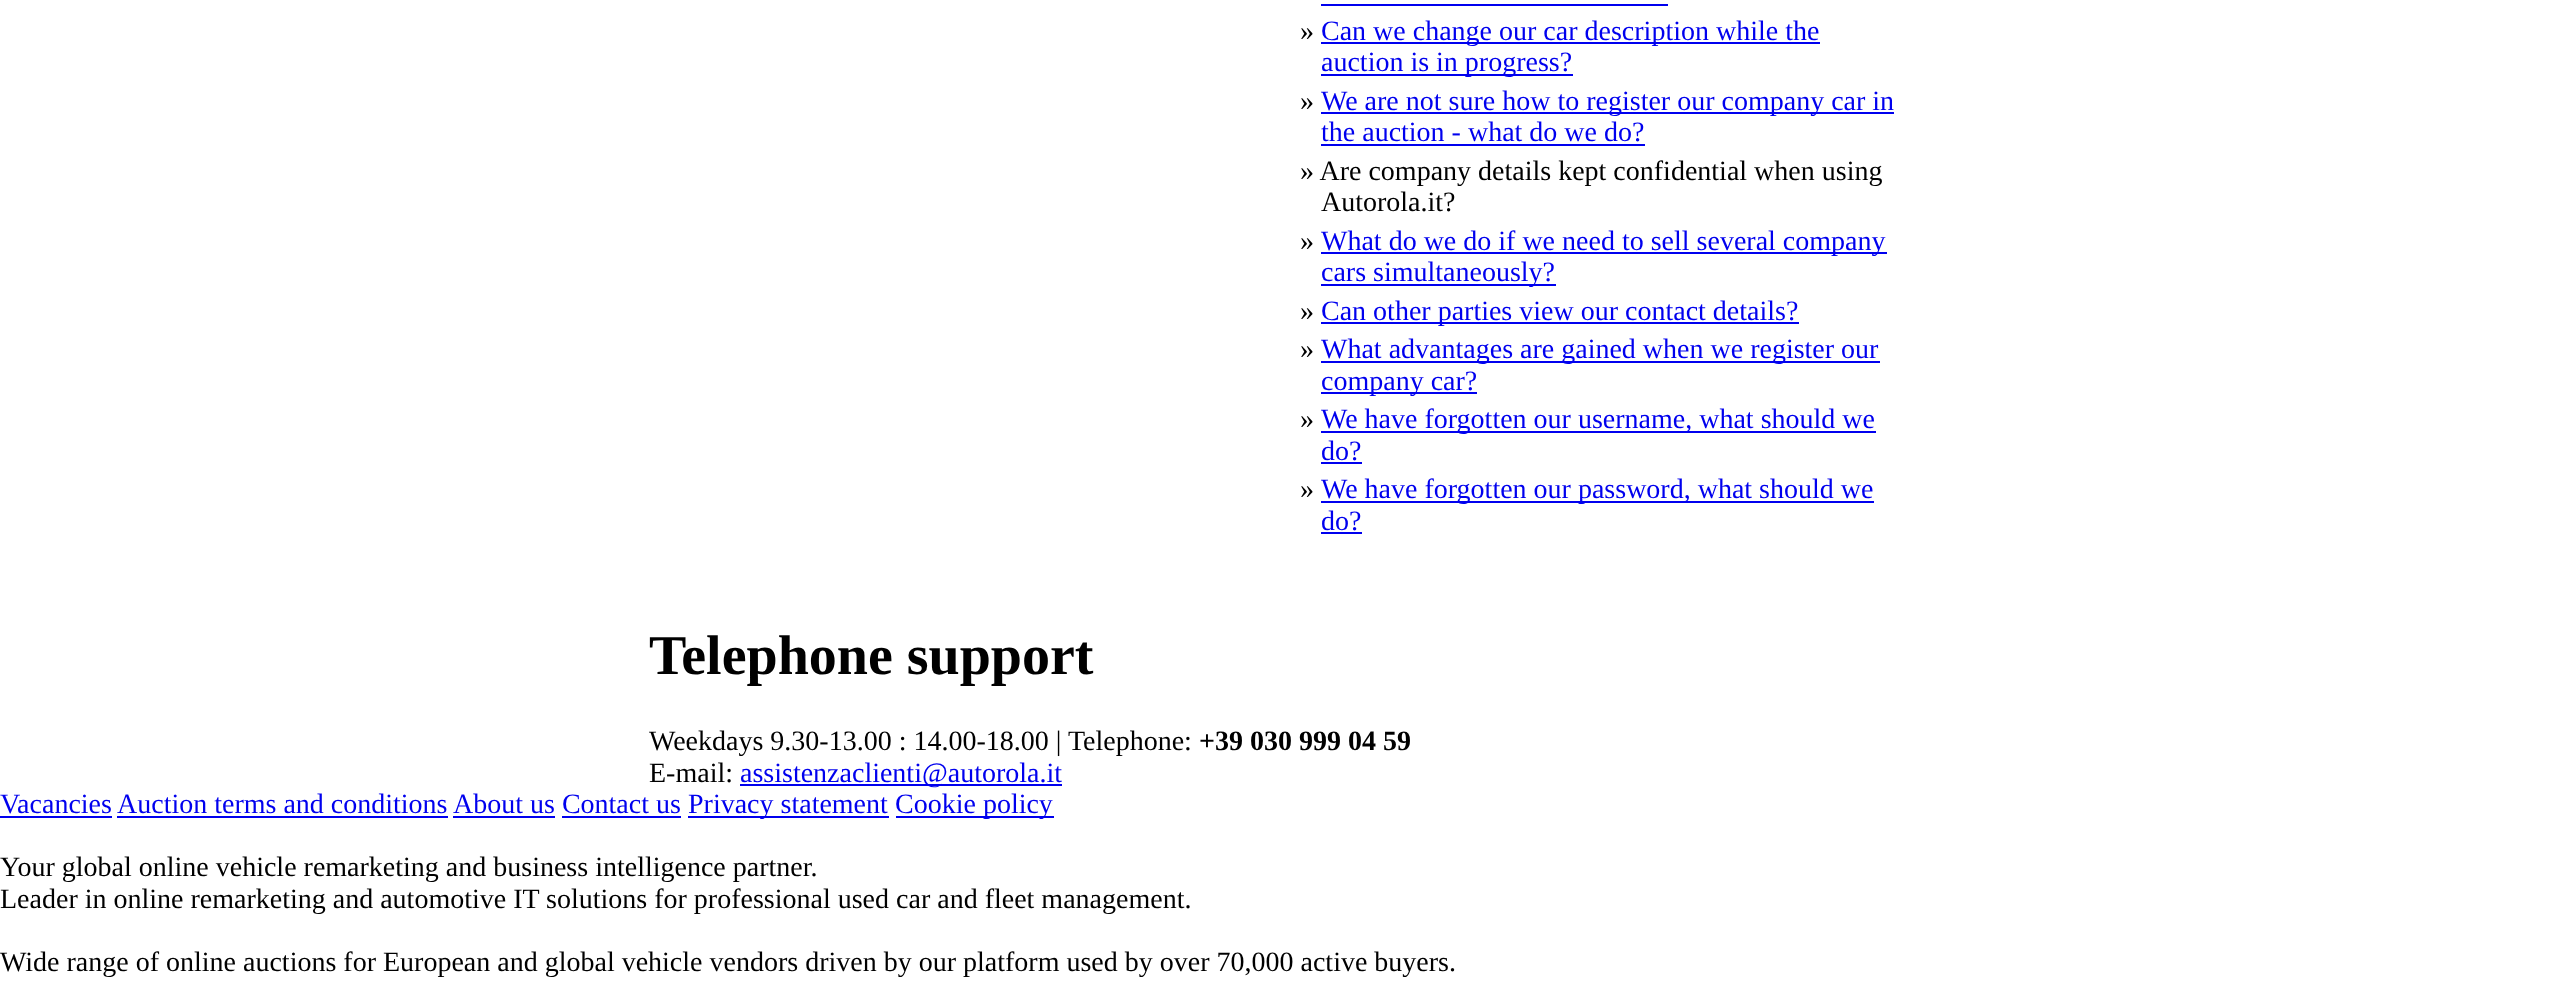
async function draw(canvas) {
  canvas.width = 2572
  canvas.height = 995
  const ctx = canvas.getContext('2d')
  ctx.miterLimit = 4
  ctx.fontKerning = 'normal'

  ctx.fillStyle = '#fff'
  ctx.fillRect(0, 0, 2572, 995)
  ctx.fillStyle = '#00e'
  ctx.fillRect(1321, 4, 347, 2)
  ctx.font = '28px Liberation Serif'
  ctx.fillStyle = '#000'
  ctx.fillText('»', 1300, 40)
  ctx.fillStyle = '#00e'
  ctx.fillRect(1321, 42, 499, 2)
  ctx.fillText('Can we change our car description while the', 1321, 40)
  ctx.fillRect(1321, 74, 252, 2)
  ctx.fillText('auction is in progress?', 1321, 71)
  ctx.fillStyle = '#000'
  ctx.fillText('»', 1300, 110)
  ctx.fillStyle = '#00e'
  ctx.fillRect(1321, 112, 573, 2)
  ctx.fillText('We are not sure how to register our company car in', 1321, 110)
  ctx.fillText('the auction - what do we do?', 1321, 141)
  ctx.fillRect(1321, 144, 324, 2)
  ctx.fillStyle = '#000'
  ctx.fillText('» Are company details kept confidential when using', 1300, 180)
  ctx.fillText('Autorola.it?', 1321, 211)
  ctx.fillText('»', 1300, 250)
  ctx.fillStyle = '#00e'
  ctx.fillRect(1321, 252, 566, 2)
  ctx.fillText('What do we do if we need to sell several company', 1321, 250)
  ctx.fillRect(1321, 284, 235, 2)
  ctx.fillText('cars simultaneously?', 1321, 281)
  ctx.fillStyle = '#000'
  ctx.fillText('»', 1300, 320)
  ctx.fillStyle = '#00e'
  ctx.fillRect(1321, 322, 478, 2)
  ctx.fillText('Can other parties view our contact details?', 1321, 320)
  ctx.fillStyle = '#000'
  ctx.fillText('»', 1300, 358)
  ctx.fillStyle = '#00e'
  ctx.fillRect(1321, 361, 559, 2)
  ctx.fillText('What advantages are gained when we register our', 1321, 358)
  ctx.fillRect(1321, 392, 156, 2)
  ctx.fillText('company car?', 1321, 390)
  ctx.fillStyle = '#000'
  ctx.fillText('»', 1300, 428)
  ctx.fillStyle = '#00e'
  ctx.fillRect(1321, 431, 555, 2)
  ctx.fillText('We have forgotten our username, what should we', 1321, 428)
  ctx.fillText('do?', 1321, 460)
  ctx.fillRect(1321, 462, 41, 2)
  ctx.fillStyle = '#000'
  ctx.fillText('»', 1300, 498)
  ctx.fillStyle = '#00e'
  ctx.fillRect(1321, 501, 553, 2)
  ctx.fillText('We have forgotten our password, what should we', 1321, 498)
  ctx.fillText('do?', 1321, 530)
  ctx.fillRect(1321, 532, 41, 2)
  ctx.font = 'bold 56px Liberation Serif'
  ctx.fillStyle = '#000'
  ctx.fillText('Telephone support', 649, 674)
  ctx.font = '28px Liberation Serif'
  ctx.fillText('Weekdays 9.30-13.00 : 14.00-18.00 | Telephone:', 649, 750)
  ctx.font = 'bold 28px Liberation Serif'
  ctx.fillText('+39 030 999 04 59', 1199, 750)
  ctx.font = '28px Liberation Serif'
  ctx.fillText('E-mail:', 649, 782)
  ctx.fillStyle = '#00e'
  ctx.fillRect(740, 784, 322, 2)
  ctx.fillText('assistenzaclienti@autorola.it', 740, 782)
  ctx.fillText('Vacancies', 0, 813)
  ctx.fillRect(0, 816, 112, 2)
  ctx.fillText('Auction terms and conditions', 117, 813)
  ctx.fillRect(117, 816, 331, 2)
  ctx.fillText('About us Contact us', 453, 813)
  ctx.fillRect(453, 816, 102, 2)
  ctx.fillRect(688, 816, 201, 2)
  ctx.fillText('Privacy statement', 688, 813)
  ctx.fillRect(896, 816, 158, 2)
  ctx.fillText('Cookie policy', 895, 813)
  ctx.fillRect(562, 816, 119, 2)
  ctx.fillStyle = '#000'
  ctx.fillText('Your global online vehicle remarketing and business intelligence partner.', 0, 876)
  ctx.fillText('Leader in online remarketing and automotive IT solutions for professional used car and fleet management.', 0, 908)
  ctx.fillText('Wide range of online auctions for European and global vehicle vendors driven by our platform used by over 70,000 active buyers.', 0, 971)
}

draw(document.querySelector('canvas'))
